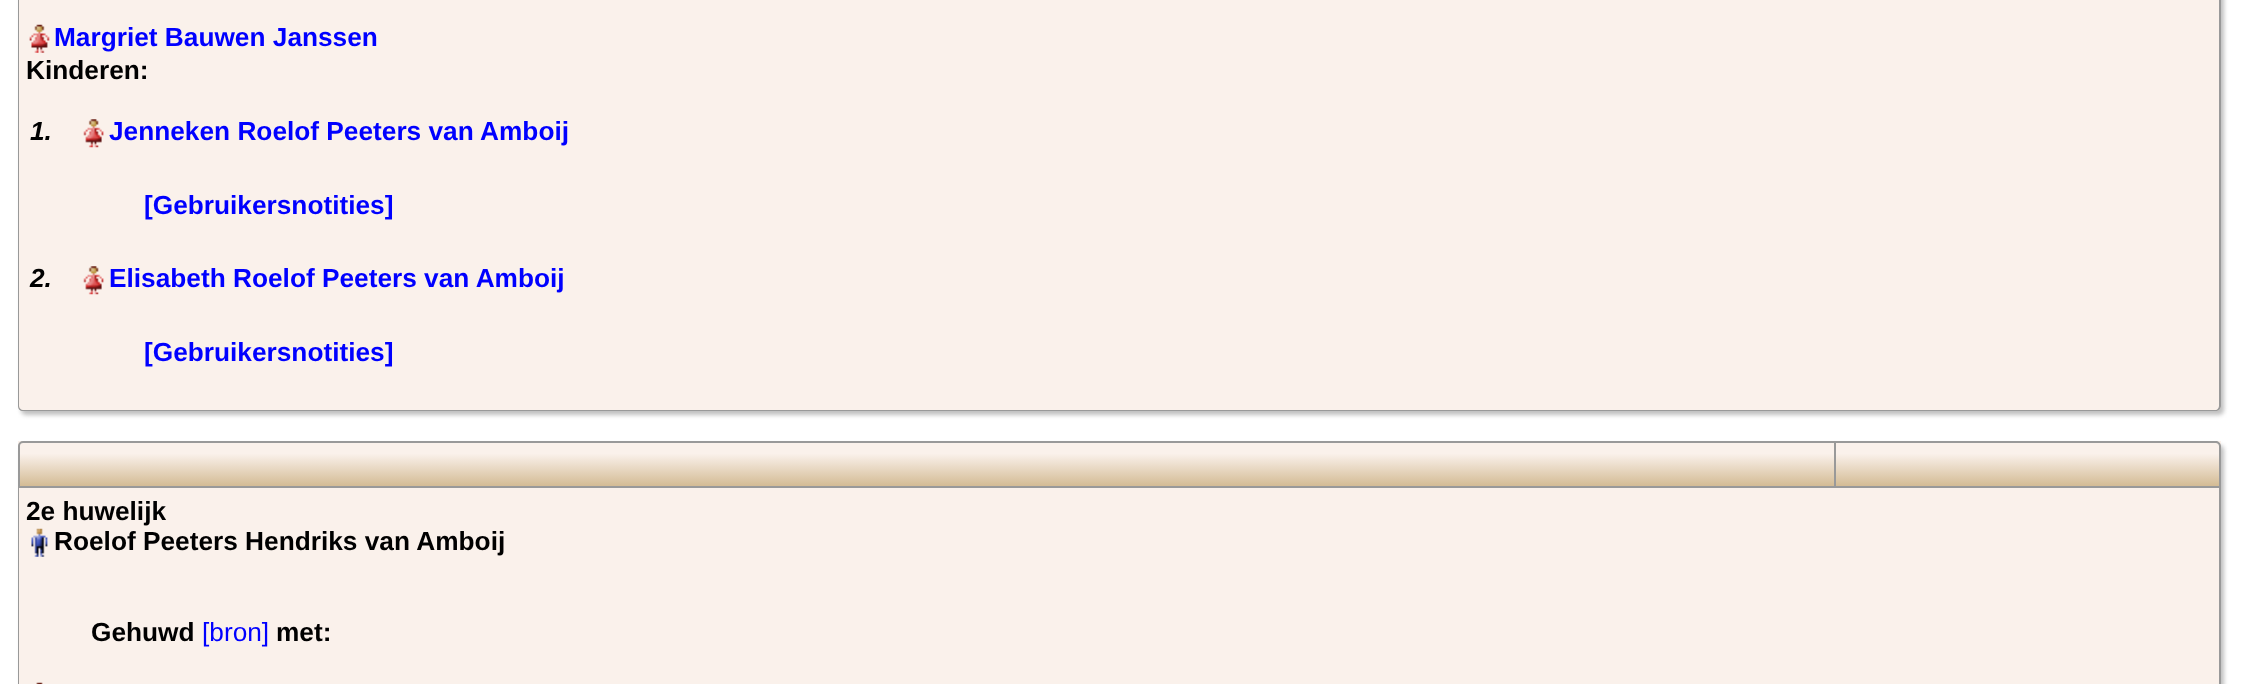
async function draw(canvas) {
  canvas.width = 2266
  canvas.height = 684
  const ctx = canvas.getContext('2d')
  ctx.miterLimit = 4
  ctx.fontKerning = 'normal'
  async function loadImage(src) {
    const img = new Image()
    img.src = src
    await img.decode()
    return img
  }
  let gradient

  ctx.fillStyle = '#fff'
  ctx.fillRect(0, 0, 2266, 684)
  ctx.fillStyle = '#c0c0c0'
  ctx.filter = 'blur(2px)'
  ctx.beginPath()
  ctx.roundRect(21, -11, 2203, 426, 5)
  ctx.fill()
  ctx.filter = 'none'
  ctx.fillStyle = '#faf1eb'
  ctx.beginPath()
  ctx.roundRect(18, -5, 2203, 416, 5)
  ctx.fill()
  ctx.fillStyle = '#999'
  ctx.beginPath()
  ctx.moveTo(18, -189)
  ctx.lineTo(2221, -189)
  ctx.lineTo(2221, 406)
  ctx.bezierCurveTo(2221, 409, 2218, 411, 2216, 411)
  ctx.lineTo(23, 411)
  ctx.bezierCurveTo(20, 411, 18, 409, 18, 406)
  ctx.closePath()
  ctx.moveTo(19, -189)
  ctx.lineTo(2219, -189)
  ctx.lineTo(2219, 406)
  ctx.bezierCurveTo(2219, 408, 2217, 410, 2216, 410)
  ctx.lineTo(23, 410)
  ctx.bezierCurveTo(21, 410, 19, 408, 19, 406)
  ctx.closePath()
  ctx.fill('evenodd')
  ctx.drawImage(await loadImage('image0.png'), 29, 24, 21, 29)
  ctx.font = 'bold 26.25px Liberation Sans'
  ctx.fillStyle = '#00f'
  ctx.fillText('Margriet Bauwen Janssen', 54, 46)
  ctx.fillStyle = '#000'
  ctx.fillText('Kinderen:', 26, 79)
  ctx.font = 'italic bold 26.25px Liberation Sans'
  ctx.fillText('1.', 30, 140)
  ctx.drawImage(await loadImage('image1.png'), 83, 119, 21, 29)
  ctx.font = 'bold 26.25px Liberation Sans'
  ctx.fillStyle = '#00f'
  ctx.fillText('Jenneken Roelof Peeters van Amboij', 109, 140)
  ctx.fillText('[Gebruikersnotities]', 144, 214)
  ctx.font = 'italic bold 26.25px Liberation Sans'
  ctx.fillStyle = '#000'
  ctx.fillText('2.', 30, 287)
  ctx.drawImage(await loadImage('image1.png'), 83, 266, 21, 29)
  ctx.font = 'bold 26.25px Liberation Sans'
  ctx.fillStyle = '#00f'
  ctx.fillText('Elisabeth Roelof Peeters van Amboij', 109, 287)
  ctx.fillText('[Gebruikersnotities]', 144, 361)
  ctx.fillStyle = '#c0c0c0'
  ctx.filter = 'blur(2px)'
  ctx.beginPath()
  ctx.roundRect(21, 445, 2203, 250, 5)
  ctx.fill()
  ctx.filter = 'none'
  ctx.fillStyle = '#faf1eb'
  ctx.fillRect(19, 488, 2200, 196)
  gradient = ctx.createLinearGradient(1119, 488, 1119, 441)
  gradient.addColorStop(0, '#d1b88f')
  gradient.addColorStop(0.73, '#faf1eb')
  ctx.fillStyle = gradient
  ctx.fillRect(18, 441, 2203, 45)
  ctx.beginPath()
  ctx.roundRect(19, 442, 1816, 45, [4, 0, 0, 0])
  ctx.strokeStyle = '#999'
  ctx.lineWidth = 2
  ctx.stroke()
  ctx.fillStyle = '#999'
  ctx.beginPath()
  ctx.moveTo(1836, 441)
  ctx.lineTo(2216, 441)
  ctx.bezierCurveTo(2218, 441, 2221, 443, 2221, 446)
  ctx.lineTo(2221, 488)
  ctx.lineTo(1836, 488)
  ctx.closePath()
  ctx.moveTo(1836, 443)
  ctx.lineTo(2216, 443)
  ctx.bezierCurveTo(2217, 443, 2219, 444, 2219, 446)
  ctx.lineTo(2219, 486)
  ctx.lineTo(1836, 486)
  ctx.closePath()
  ctx.fill('evenodd')
  ctx.beginPath()
  ctx.moveTo(18, 488)
  ctx.lineTo(2221, 488)
  ctx.lineTo(2221, 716)
  ctx.bezierCurveTo(2221, 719, 2218, 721, 2216, 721)
  ctx.lineTo(23, 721)
  ctx.bezierCurveTo(20, 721, 18, 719, 18, 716)
  ctx.closePath()
  ctx.moveTo(19, 488)
  ctx.lineTo(2219, 488)
  ctx.lineTo(2219, 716)
  ctx.bezierCurveTo(2219, 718, 2217, 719, 2216, 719)
  ctx.lineTo(23, 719)
  ctx.bezierCurveTo(21, 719, 19, 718, 19, 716)
  ctx.closePath()
  ctx.fill('evenodd')
  ctx.fillStyle = '#000'
  ctx.fillText('2e huwelijk', 26, 520)
  ctx.drawImage(await loadImage('image2.png'), 31, 528, 17, 29)
  ctx.fillText('Roelof Peeters Hendriks van Amboij', 54, 550)
  ctx.fillText('Gehuwd', 91, 641)
  ctx.font = '26.25px Liberation Sans'
  ctx.fillStyle = '#00f'
  ctx.fillText('[bron]', 202, 641)
  ctx.font = 'bold 26.25px Liberation Sans'
  ctx.fillStyle = '#000'
  ctx.fillText('met:', 276, 641)
  ctx.drawImage(await loadImage('image3.png'), 36, 682, 7, 2)
}

draw(document.querySelector('canvas'))
